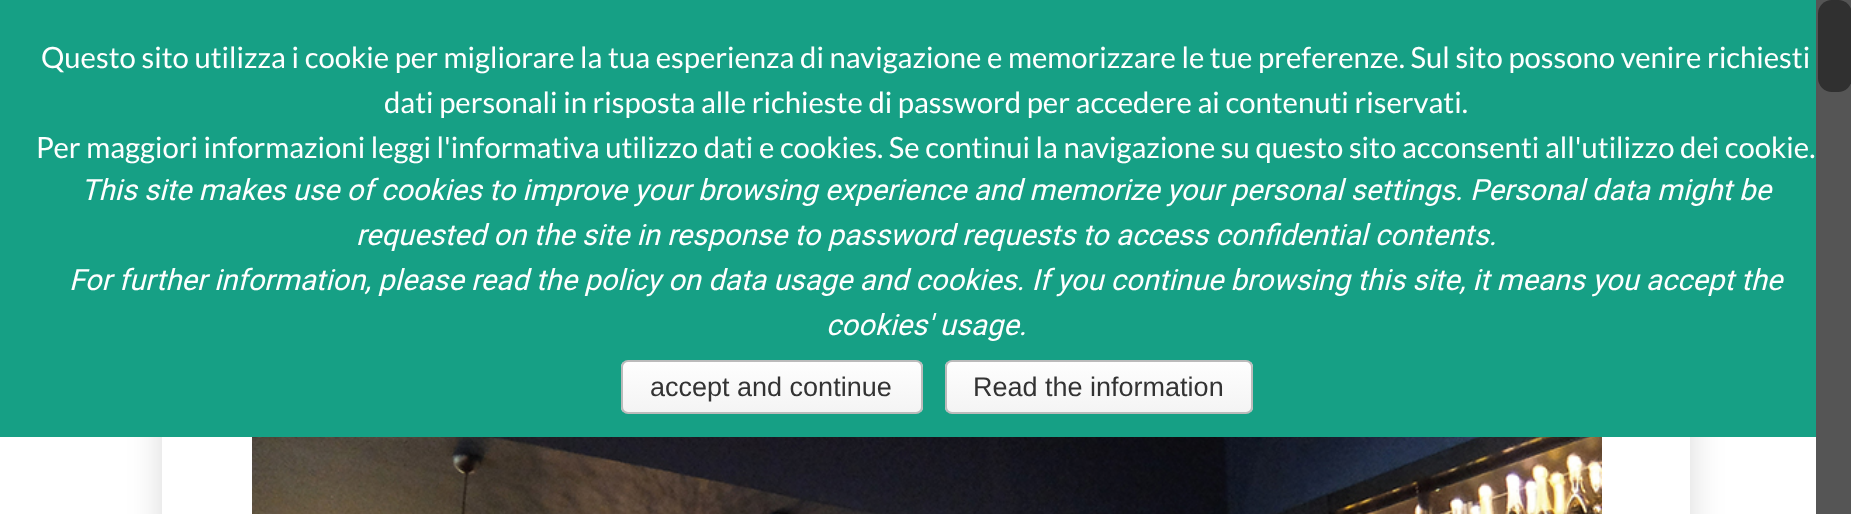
async function draw(canvas) {
  canvas.width = 1851
  canvas.height = 514
  const ctx = canvas.getContext('2d')
  ctx.miterLimit = 4
  ctx.fontKerning = 'normal'
  async function loadImage(src) {
    const img = new Image()
    img.src = src
    await img.decode()
    return img
  }
  let gradient

  ctx.fillStyle = '#fff'
  ctx.fillRect(0, 0, 1851, 514)
  ctx.fillStyle = '#00000026'
  ctx.filter = 'blur(17px)'
  ctx.beginPath()
  ctx.rect(162, 0, 1528, 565)
  ctx.fill()
  ctx.filter = 'none'
  ctx.fillStyle = '#fff'
  ctx.fillRect(162, 437, 1528, 77)
  ctx.drawImage(await loadImage('image0.png'), 252, 437, 1350, 77)
  ctx.fillStyle = '#555'
  ctx.fillRect(1816, 0, 35, 514)
  ctx.fillStyle = '#303030'
  ctx.beginPath()
  ctx.roundRect(1818, 0, 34, 92, 14)
  ctx.fill()
  ctx.fillStyle = '#16a085'
  ctx.fillRect(0, 0, 1816, 437)
  ctx.font = '29.25px Lato'
  ctx.fillStyle = '#fff'
  ctx.fillText('Questo sito utilizza i cookie per migliorare la tua esperienza di navigazione e memorizzare le tue preferenze. Sul sito possono venire richiesti', 41, 68)
  ctx.fillText('dati personali in risposta alle richieste di password per accedere ai contenuti riservati.', 384, 113)
  ctx.fillText('Per maggiori informazioni leggi l\'informativa utilizzo dati e cookies. Se continui la navigazione su questo sito acconsenti all\'utilizzo dei cookie.', 36, 158)
  ctx.font = 'italic 29.25px Roboto'
  ctx.fillText('This site makes use of cookies to improve your browsing experience and memorize your personal settings. Personal data might be', 81, 200)
  ctx.fillText('requested on the site in response to password requests to access confidential contents.', 356, 245)
  ctx.fillText('For further information, please read the policy on data usage and cookies. If you continue browsing this site, it means you accept the', 69, 290)
  ctx.fillText('cookies\' usage.', 826, 335)
  ctx.save()
  ctx.beginPath()
  ctx.roundRect(621, 360, 302, 54, 7)
  ctx.clip()
  gradient = ctx.createLinearGradient(772, 362, 772, 412)
  gradient.addColorStop(0, '#fefefe')
  gradient.addColorStop(1, '#f4f4f4')
  ctx.fillStyle = gradient
  ctx.fillRect(621, 362, 302, 50)
  ctx.restore()
  ctx.beginPath()
  ctx.roundRect(622, 361, 300, 52, 6)
  ctx.strokeStyle = '#bbb'
  ctx.lineWidth = 2
  ctx.stroke()
  ctx.font = '27px Liberation Sans'
  ctx.fillStyle = '#333'
  ctx.fillText('accept and continue', 650, 396)
  ctx.save()
  ctx.beginPath()
  ctx.roundRect(945, 360, 308, 54, 7)
  ctx.clip()
  gradient = ctx.createLinearGradient(1099, 362, 1099, 412)
  gradient.addColorStop(0, '#fefefe')
  gradient.addColorStop(1, '#f4f4f4')
  ctx.fillStyle = gradient
  ctx.fillRect(945, 362, 308, 50)
  ctx.restore()
  ctx.beginPath()
  ctx.roundRect(946, 361, 306, 52, 6)
  ctx.stroke()
  ctx.fillText('Read the information', 973, 396)
}

draw(document.querySelector('canvas'))
